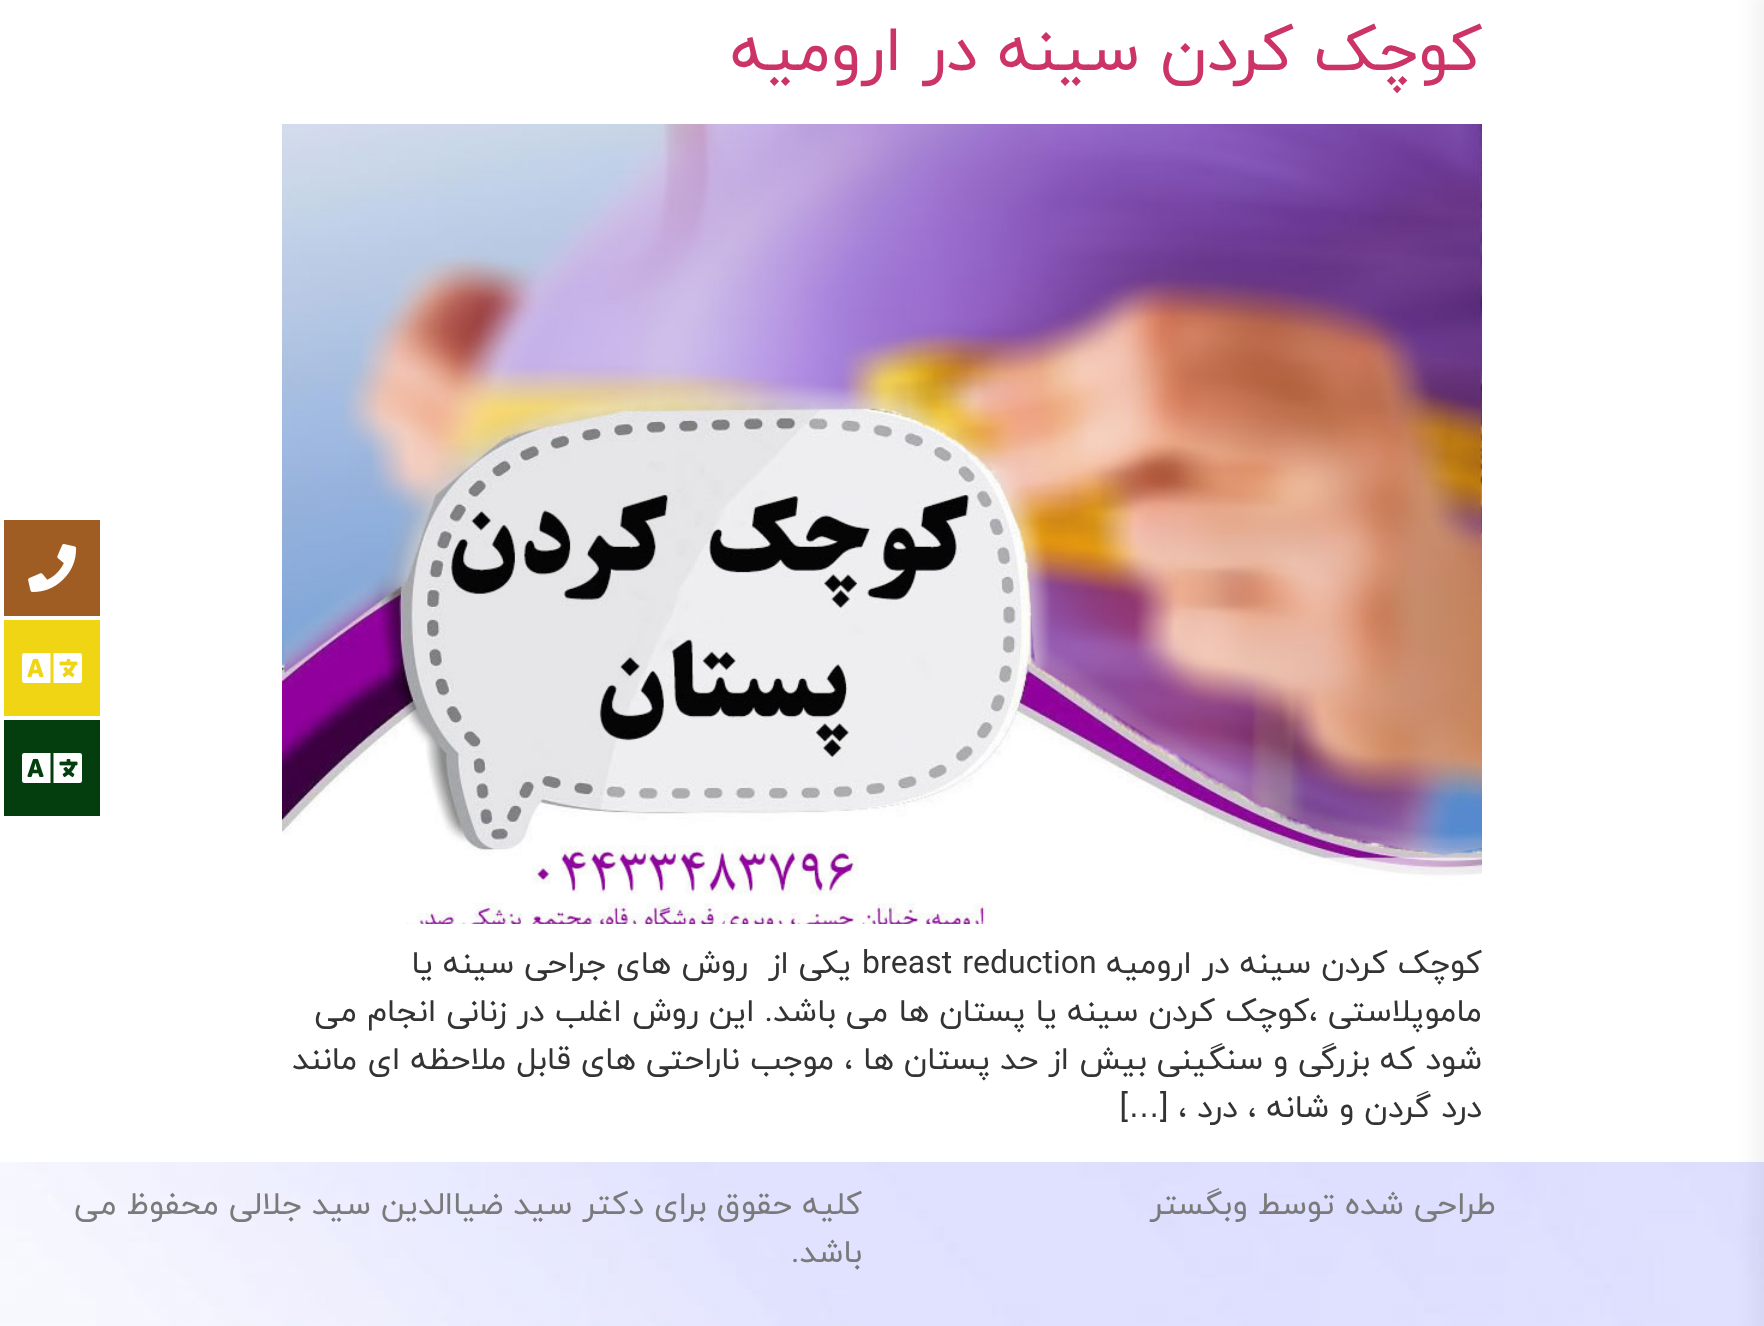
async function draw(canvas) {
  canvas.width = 1764
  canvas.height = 1326
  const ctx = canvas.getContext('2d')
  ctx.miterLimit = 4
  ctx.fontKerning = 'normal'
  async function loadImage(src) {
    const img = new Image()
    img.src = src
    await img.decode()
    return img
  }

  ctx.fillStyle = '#fff'
  ctx.fillRect(0, 0, 1764, 1326)
  ctx.drawImage(await loadImage('image4.png'), 0, 1162, 1764, 164)
  ctx.fillStyle = '#0000000d'
  ctx.filter = 'blur(10px)'
  ctx.beginPath()
  ctx.rect(1754, -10, 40, 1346)
  ctx.fill()
  ctx.filter = 'none'
  ctx.direction = 'rtl'
  ctx.font = '64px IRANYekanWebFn'
  ctx.fillStyle = '#c36'
  ctx.fillText('کوچک کردن سینه در ارومیه', 1482, 70)
  ctx.drawImage(await loadImage('image0.png'), 282, 124, 1200, 800)
  ctx.font = '32px IRANYekanWebFn'
  ctx.fillStyle = '#333'
  ctx.fillText('کوچک کردن سینه در ارومیه', 1482, 973)
  ctx.direction = 'ltr'
  ctx.fillText('breast reduction', 862, 973)
  ctx.direction = 'rtl'
  ctx.fillText('یکی از  روش های جراحی سینه یا', 851, 973)
  ctx.fillText('ماموپلاستی ،کوچک کردن سینه یا پستان ها می باشد. این روش اغلب در زنانی انجام می', 1482, 1021)
  ctx.fillText('شود که بزرگی و سنگینی بیش از حد پستان ها ، موجب ناراحتی های قابل ملاحظه ای مانند', 1482, 1069)
  ctx.fillText('درد گردن و شانه ، درد ، [', 1482, 1117)
  ctx.font = '32px Liberation Sans'
  ctx.fillText('…', 1160, 1117)
  ctx.font = '32px IRANYekanWebFn'
  ctx.fillText(']', 1128, 1117)
  ctx.fillStyle = '#a05d23'
  ctx.fillRect(4, 520, 96, 96)
  ctx.drawImage(await loadImage('image1.png'), 28, 544, 49, 48)
  ctx.fillStyle = '#efd513'
  ctx.fillRect(4, 620, 96, 96)
  ctx.drawImage(await loadImage('image2.png'), 22, 653, 60, 30)
  ctx.fillStyle = '#043d0e'
  ctx.fillRect(4, 720, 96, 96)
  ctx.drawImage(await loadImage('image3.png'), 22, 753, 60, 30)
  ctx.fillStyle = '#7a7a7a'
  ctx.fillText('طراحی شده توسط وبگستر', 1496, 1214)
  ctx.fillText('کلیه حقوق برای دکتر سید ضیاالدین سید جلالی محفوظ می', 862, 1214)
  ctx.fillText('باشد.', 862, 1262)
}

draw(document.querySelector('canvas'))
